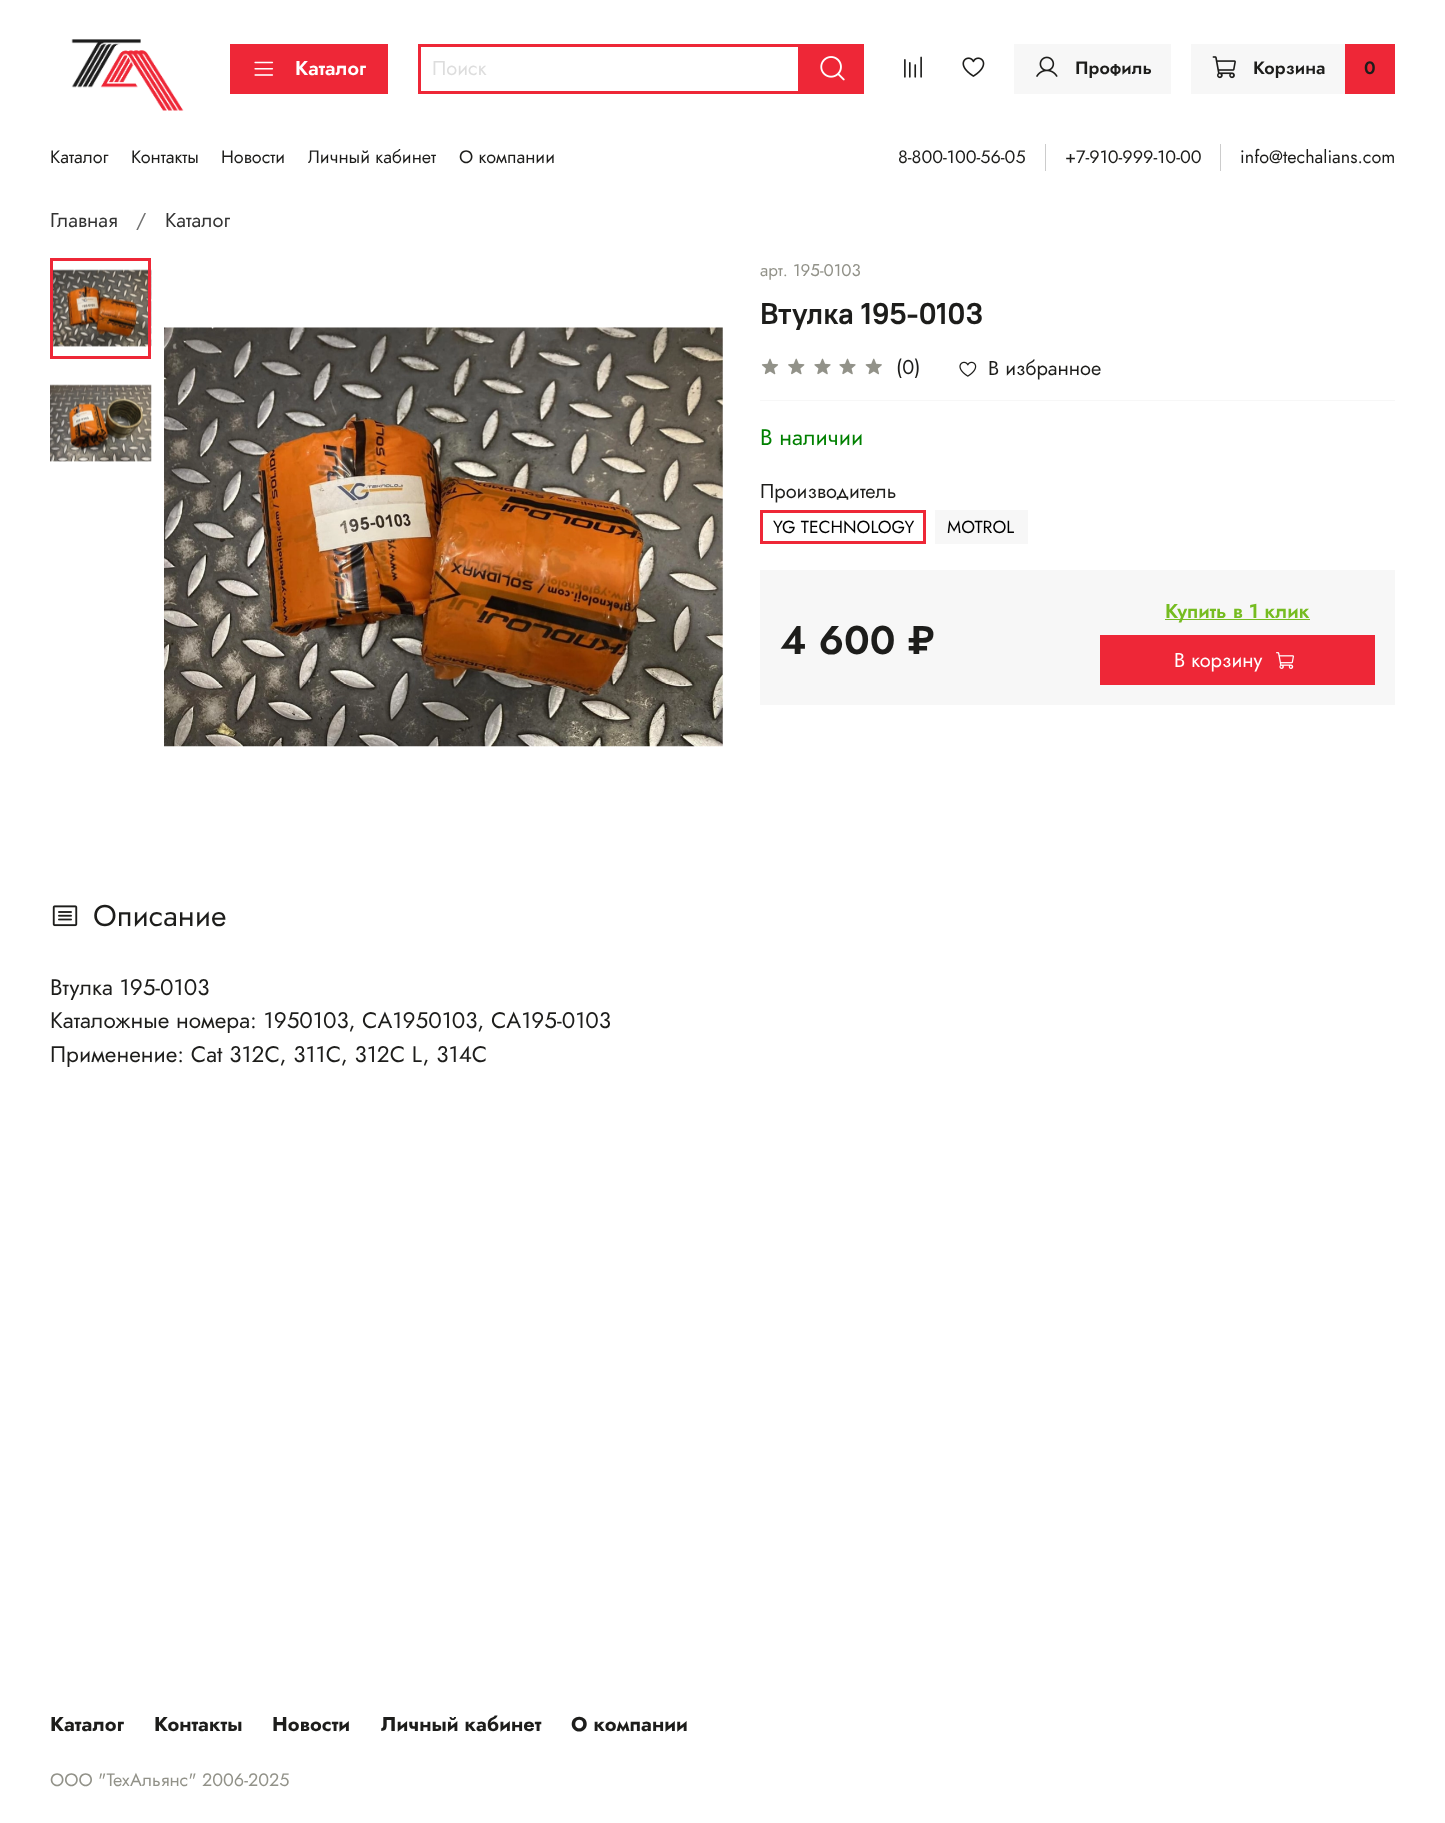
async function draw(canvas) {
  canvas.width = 1445
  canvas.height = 1823
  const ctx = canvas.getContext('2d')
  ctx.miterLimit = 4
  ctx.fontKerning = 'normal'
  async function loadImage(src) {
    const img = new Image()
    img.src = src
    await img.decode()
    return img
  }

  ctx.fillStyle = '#fff'
  ctx.fillRect(0, 0, 1445, 1823)
  ctx.drawImage(await loadImage('image0.png'), 71, 39, 113, 72)
  ctx.fillStyle = '#ee2737'
  ctx.fillRect(230, 44, 158, 50)
  ctx.drawImage(await loadImage('image1.png'), 254, 61, 20, 15)
  ctx.font = '600 20px Jost'
  ctx.fillStyle = '#fff'
  ctx.fillText('Каталог', 295, 75)
  ctx.strokeStyle = '#ee2737'
  ctx.lineWidth = 3
  ctx.strokeRect(419.5, 45.5, 380, 47)
  ctx.font = '20px Jost'
  ctx.fillStyle = '#ddd'
  ctx.fillText('Поиск', 432, 75)
  ctx.fillStyle = '#ee2737'
  ctx.fillRect(801, 44, 63, 50)
  ctx.drawImage(await loadImage('image2.png'), 820, 56, 25, 25)
  ctx.drawImage(await loadImage('image3.png'), 904, 56, 18, 22)
  ctx.drawImage(await loadImage('image4.png'), 962, 57, 23, 20)
  ctx.fillStyle = '#f7f7f7'
  ctx.fillRect(1014, 44, 157, 50)
  ctx.drawImage(await loadImage('image5.png'), 1036, 56, 22, 21)
  ctx.font = '600 18px Jost'
  ctx.fillStyle = '#1d1d1b'
  ctx.fillText('Профиль', 1075, 74)
  ctx.fillStyle = '#f7f7f7'
  ctx.fillRect(1191, 44, 154, 50)
  ctx.drawImage(await loadImage('image6.png'), 1212, 56, 24, 23)
  ctx.fillStyle = '#1d1d1b'
  ctx.fillText('Корзина', 1253, 74)
  ctx.fillStyle = '#ee2737'
  ctx.fillRect(1345, 44, 50, 50)
  ctx.fillStyle = '#1d1d1b'
  ctx.fillText('0', 1364, 74)
  ctx.font = '18px Jost'
  ctx.fillText('Каталог', 50, 163)
  ctx.fillText('Контакты', 131, 163)
  ctx.fillText('Новости', 221, 163)
  ctx.fillText('Личный кабинет', 308, 163)
  ctx.fillText('О компании', 459, 163)
  ctx.fillStyle = '#ccc'
  ctx.fillRect(1045, 144, 1, 27)
  ctx.fillStyle = '#1d1d1b'
  ctx.fillText('8-800-100-56-05', 898, 163)
  ctx.fillStyle = '#ccc'
  ctx.fillRect(1220, 144, 1, 27)
  ctx.fillStyle = '#1d1d1b'
  ctx.fillText('+7-910-999-10-00', 1065, 163)
  ctx.fillText('info@techalians.com', 1240, 163)
  ctx.font = '20px Jost'
  ctx.fillStyle = '#333'
  ctx.fillText('Главная', 50, 227)
  ctx.fillStyle = '#707070'
  ctx.fillText('/', 136, 227)
  ctx.fillStyle = '#333'
  ctx.fillText('Каталог', 165, 227)
  ctx.drawImage(await loadImage('image7.png'), 53, 269, 99, 78)
  ctx.strokeRect(51.5, 259.5, 98, 98)
  ctx.drawImage(await loadImage('image8.png'), 50, 384, 102, 78)
  ctx.drawImage(await loadImage('image9.png'), 164, 327, 559, 420)
  ctx.font = '17px Jost'
  ctx.fillStyle = '#929289'
  ctx.fillText('арт. 195-0103', 760, 276)
  ctx.font = 'bold 30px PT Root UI'
  ctx.fillStyle = '#1d1d1b'
  ctx.fillText('Втулка 195-0103', 760, 324)
  ctx.fillStyle = '#f7f7f7'
  ctx.fillRect(760, 400, 635, 1)
  ctx.drawImage(await loadImage('image10.png'), 761, 358, 18, 17)
  ctx.drawImage(await loadImage('image11.png'), 788, 358, 17, 17)
  ctx.drawImage(await loadImage('image12.png'), 814, 358, 17, 17)
  ctx.drawImage(await loadImage('image12.png'), 839, 358, 17, 17)
  ctx.drawImage(await loadImage('image13.png'), 865, 358, 17, 17)
  ctx.font = '20px Jost'
  ctx.fillStyle = '#1d1d1b'
  ctx.fillText('(0)', 896, 374)
  ctx.drawImage(await loadImage('image14.png'), 959, 361, 18, 16)
  ctx.fillText('В избранное', 988, 375)
  ctx.font = '22.5px Jost'
  ctx.fillStyle = '#008000'
  ctx.fillText('В наличии', 760, 445)
  ctx.font = '20px Jost'
  ctx.fillStyle = '#1d1d1b'
  ctx.fillText('Производитель', 760, 498)
  ctx.strokeRect(761.5, 511.5, 163, 31)
  ctx.font = '17.5px Jost'
  ctx.fillStyle = '#000'
  ctx.fillText('YG TECHNOLOGY', 773, 533)
  ctx.fillStyle = '#f7f7f7'
  ctx.fillRect(935, 510, 93, 34)
  ctx.fillStyle = '#000'
  ctx.fillText('MOTROL', 947, 533)
  ctx.fillStyle = '#f7f7f7'
  ctx.fillRect(760, 570, 635, 135)
  ctx.font = '600 40px Jost'
  ctx.fillStyle = '#1d1d1b'
  ctx.fillText('4 600 ₽', 780, 654)
  ctx.fillStyle = '#76bc21'
  ctx.fillRect(1165, 619, 145, 1)
  ctx.font = '600 20px Jost'
  ctx.fillText('Купить в 1 клик', 1165, 618)
  ctx.fillStyle = '#ee2737'
  ctx.fillRect(1100, 635, 275, 50)
  ctx.font = '20px Jost'
  ctx.fillStyle = '#fff'
  ctx.fillText('В корзину', 1174, 667)
  ctx.drawImage(await loadImage('image15.png'), 1276, 652, 18, 17)
  ctx.drawImage(await loadImage('image16.png'), 52, 905, 26, 22)
  ctx.font = '30px Jost'
  ctx.fillStyle = '#1d1d1b'
  ctx.fillText('Описание', 93, 926)
  ctx.font = '22.5px Jost'
  ctx.fillText('Втулка 195-0103', 50, 995)
  ctx.fillText('Каталожные номера: 1950103, CA1950103, CA195-0103', 50, 1028)
  ctx.fillText('Применение: Cat 312C, 311C, 312C L, 314C', 50, 1062)
  ctx.font = 'bold 20px Jost'
  ctx.fillText('Каталог', 50, 1731)
  ctx.fillText('Контакты', 154, 1731)
  ctx.fillText('Новости', 272, 1731)
  ctx.fillText('Личный кабинет', 381, 1731)
  ctx.fillText('О компании', 571, 1731)
  ctx.font = '18px Jost'
  ctx.fillStyle = '#929289'
  ctx.fillText('ООО "ТехАльянс" 2006-2025', 50, 1786)
}

draw(document.querySelector('canvas'))
